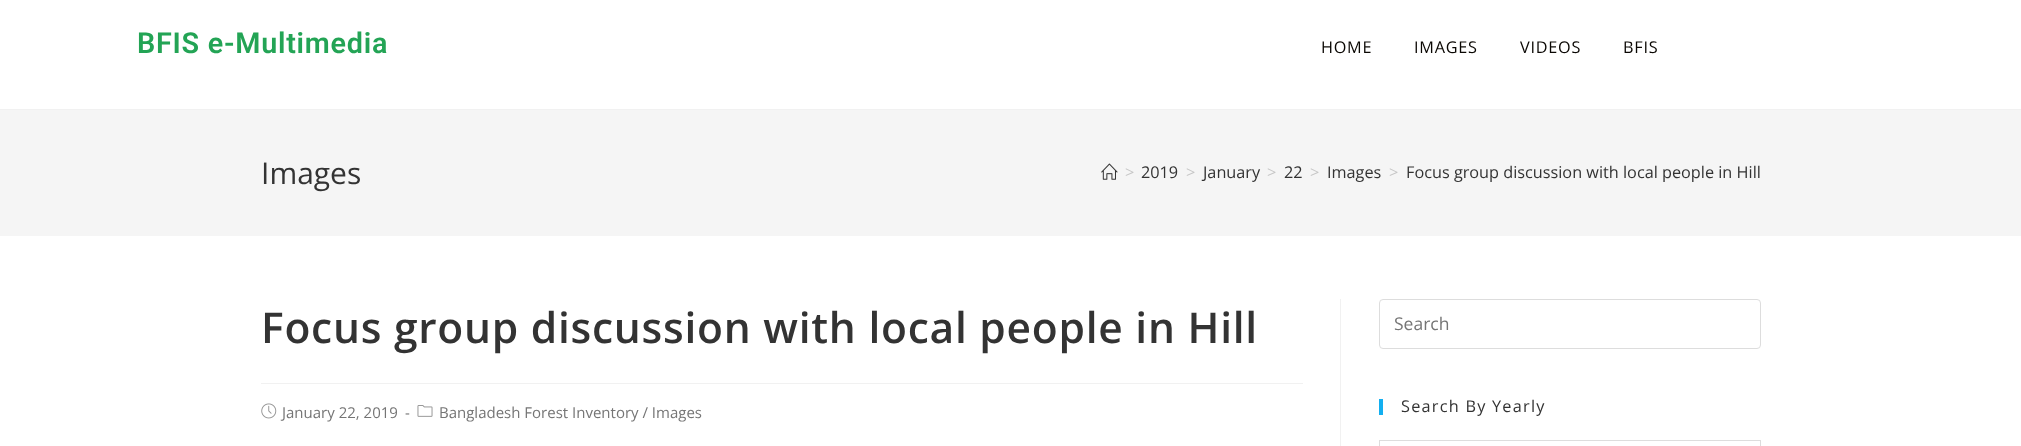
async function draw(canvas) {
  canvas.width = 2021
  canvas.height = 446
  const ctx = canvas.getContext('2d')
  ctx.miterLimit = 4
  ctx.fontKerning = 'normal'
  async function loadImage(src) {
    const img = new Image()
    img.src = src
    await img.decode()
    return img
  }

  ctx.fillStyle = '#fff'
  ctx.fillRect(0, 0, 2021, 446)
  ctx.fillStyle = '#f1f1f1'
  ctx.fillRect(0, 109, 2021, 1)
  ctx.letterSpacing = '0.75px'
  ctx.font = '600 28.75px Roboto'
  ctx.fillStyle = '#23a455'
  ctx.fillText('BFIS e-Multimedia', 137, 53)
  ctx.font = '16.25px Open Sans'
  ctx.fillStyle = '#0a0703'
  ctx.fillText('HOME', 1321, 53)
  ctx.fillText('IMAGES', 1414, 53)
  ctx.fillText('VIDEOS', 1520, 53)
  ctx.fillText('BFIS', 1623, 53)
  ctx.fillStyle = '#f5f5f5'
  ctx.fillRect(0, 110, 2021, 126)
  ctx.letterSpacing = '0px'
  ctx.font = '30px Open Sans'
  ctx.fillStyle = '#333'
  ctx.fillText('Images', 261, 184)
  ctx.drawImage(await loadImage('image0.png'), 1101, 163, 17, 17)
  ctx.font = '16.25px Open Sans'
  ctx.fillStyle = '#c6c6c6'
  ctx.fillText('>', 1125, 178)
  ctx.fillStyle = '#333'
  ctx.fillText('2019', 1141, 178)
  ctx.fillStyle = '#c6c6c6'
  ctx.fillText('>', 1186, 178)
  ctx.fillStyle = '#333'
  ctx.fillText('January', 1203, 178)
  ctx.fillStyle = '#c6c6c6'
  ctx.fillText('>', 1267, 178)
  ctx.fillStyle = '#333'
  ctx.fillText('22', 1284, 178)
  ctx.fillStyle = '#c6c6c6'
  ctx.fillText('>', 1310, 178)
  ctx.fillStyle = '#333'
  ctx.fillText('Images', 1327, 178)
  ctx.fillStyle = '#c6c6c6'
  ctx.fillText('>', 1389, 178)
  ctx.fillStyle = '#333'
  ctx.fillText('Focus group discussion with local people in Hill', 1406, 178)
  ctx.fillStyle = '#f1f1f1'
  ctx.fillRect(1340, 299, 1, 147)
  ctx.fillRect(261, 383, 1042, 1)
  ctx.letterSpacing = '0.75px'
  ctx.font = '600 42.5px Open Sans'
  ctx.fillStyle = '#333'
  ctx.fillText('Focus group discussion with local people in Hill', 261, 343)
  ctx.drawImage(await loadImage('image1.png'), 261, 403, 16, 16)
  ctx.letterSpacing = '0px'
  ctx.font = '15px Open Sans'
  ctx.fillStyle = '#757575'
  ctx.fillText('January 22, 2019', 282, 418)
  ctx.fillText('-', 405, 418)
  ctx.drawImage(await loadImage('image2.png'), 417, 405, 16, 12)
  ctx.fillText('Bangladesh Forest Inventory / Images', 439, 418)
  ctx.beginPath()
  ctx.roundRect(1379.5, 299.5, 381, 49, 3.5)
  ctx.strokeStyle = '#ddd'
  ctx.stroke()
  ctx.font = '17.5px Open Sans'
  ctx.fillText('Search', 1394, 330)
  ctx.fillStyle = '#13aff0'
  ctx.fillRect(1379, 399, 4, 16)
  ctx.letterSpacing = '1.25px'
  ctx.font = '16.25px Open Sans'
  ctx.fillStyle = '#333'
  ctx.fillText('Search By Yearly', 1401, 412)
  ctx.strokeRect(1379.5, 440.5, 381, 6)
}

draw(document.querySelector('canvas'))
